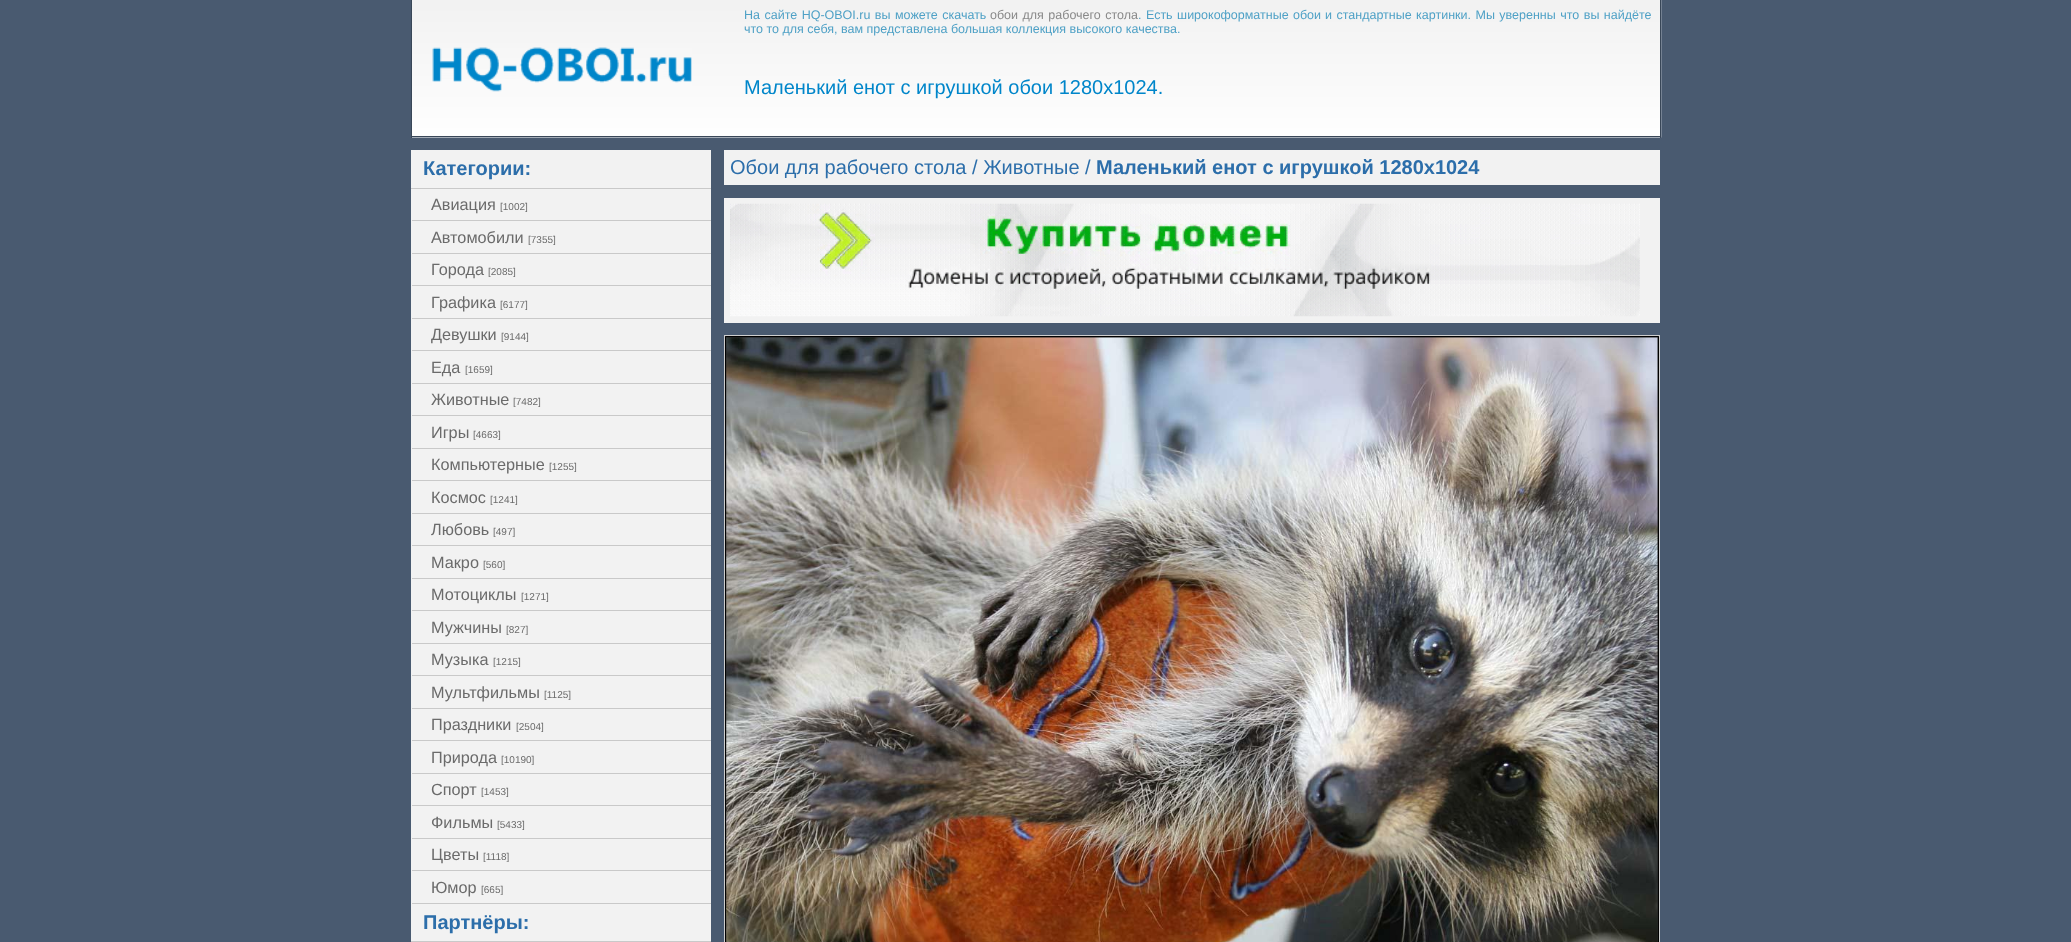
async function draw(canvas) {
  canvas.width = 2071
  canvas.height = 942
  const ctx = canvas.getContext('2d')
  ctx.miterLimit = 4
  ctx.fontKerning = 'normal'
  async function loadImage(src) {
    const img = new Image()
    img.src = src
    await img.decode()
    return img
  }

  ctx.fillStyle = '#495a70'
  ctx.fillRect(0, 0, 2071, 942)
  ctx.drawImage(await loadImage('image0.png'), 412, 0, 1250, 138)
  ctx.fillStyle = '#394758'
  ctx.fillRect(411, 136, 300, 1)
  ctx.fillRect(411, 0, 1, 138)
  ctx.drawImage(await loadImage('image1.png'), 432, 47, 260, 45)
  ctx.fillRect(1660, 0, 1, 138)
  ctx.fillRect(711, 136, 950, 1)
  ctx.wordSpacing = '1px'
  ctx.font = '12.5px Liberation Sans'
  ctx.fillStyle = '#4fa1c6'
  ctx.fillText('На сайте HQ-OBOI.ru вы можете скачать', 744, 19)
  ctx.fillStyle = '#898989'
  ctx.fillText('обои для рабочего стола', 990, 19)
  ctx.fillStyle = '#4fa1c6'
  ctx.fillText('. Есть широкоформатные', 1138, 19)
  ctx.wordSpacing = '0px'
  ctx.fillText('обои', 1293, 19)
  ctx.wordSpacing = '1px'
  ctx.fillText('и стандартные картинки. Мы уверенны что вы найдёте', 1325, 19)
  ctx.wordSpacing = '0px'
  ctx.fillText('что то для себя, вам представлена большая коллекция высокого качества.', 744, 33)
  ctx.font = '20px Liberation Sans'
  ctx.fillStyle = '#0086ca'
  ctx.fillText('Маленький енот с игрушкой обои 1280x1024.', 744, 94)
  ctx.fillStyle = '#f2f2f2'
  ctx.fillRect(411, 150, 300, 791)
  ctx.fillStyle = '#c9c9c9'
  ctx.fillRect(411, 188, 300, 1)
  ctx.font = 'bold 20px Liberation Sans'
  ctx.fillStyle = '#2c6eaa'
  ctx.fillText('Категории:', 423, 175)
  ctx.fillStyle = '#c9c9c9'
  ctx.fillRect(411, 220, 300, 1)
  ctx.fillStyle = '#f2f2f2'
  ctx.fillRect(411, 220, 1, 1)
  ctx.font = '16.25px Liberation Sans'
  ctx.fillStyle = '#6b6b6b'
  ctx.fillText('Авиация', 431, 210)
  ctx.font = '10px Liberation Sans'
  ctx.fillText('[1002]', 500, 210)
  ctx.fillStyle = '#c9c9c9'
  ctx.fillRect(411, 253, 300, 1)
  ctx.fillStyle = '#f2f2f2'
  ctx.fillRect(411, 253, 1, 1)
  ctx.font = '16.25px Liberation Sans'
  ctx.fillStyle = '#6b6b6b'
  ctx.fillText('Автомобили', 431, 243)
  ctx.font = '10px Liberation Sans'
  ctx.fillText('[7355]', 528, 243)
  ctx.fillStyle = '#c9c9c9'
  ctx.fillRect(411, 285, 300, 1)
  ctx.fillStyle = '#f2f2f2'
  ctx.fillRect(411, 285, 1, 1)
  ctx.font = '16.25px Liberation Sans'
  ctx.fillStyle = '#6b6b6b'
  ctx.fillText('Города', 431, 275)
  ctx.font = '10px Liberation Sans'
  ctx.fillText('[2085]', 488, 275)
  ctx.fillStyle = '#c9c9c9'
  ctx.fillRect(411, 318, 300, 1)
  ctx.fillStyle = '#f2f2f2'
  ctx.fillRect(411, 318, 1, 1)
  ctx.font = '16.25px Liberation Sans'
  ctx.fillStyle = '#6b6b6b'
  ctx.fillText('Графика', 431, 308)
  ctx.font = '10px Liberation Sans'
  ctx.fillText('[6177]', 500, 308)
  ctx.fillStyle = '#c9c9c9'
  ctx.fillRect(411, 350, 300, 1)
  ctx.fillStyle = '#f2f2f2'
  ctx.fillRect(411, 350, 1, 1)
  ctx.font = '16.25px Liberation Sans'
  ctx.fillStyle = '#6b6b6b'
  ctx.fillText('Девушки', 431, 340)
  ctx.font = '10px Liberation Sans'
  ctx.fillText('[9144]', 501, 340)
  ctx.fillStyle = '#c9c9c9'
  ctx.fillRect(411, 383, 300, 1)
  ctx.fillStyle = '#f2f2f2'
  ctx.fillRect(411, 383, 1, 1)
  ctx.font = '16.25px Liberation Sans'
  ctx.fillStyle = '#6b6b6b'
  ctx.fillText('Еда', 431, 373)
  ctx.font = '10px Liberation Sans'
  ctx.fillText('[1659]', 465, 373)
  ctx.fillStyle = '#c9c9c9'
  ctx.fillRect(411, 415, 300, 1)
  ctx.fillStyle = '#f2f2f2'
  ctx.fillRect(411, 415, 1, 1)
  ctx.font = '16.25px Liberation Sans'
  ctx.fillStyle = '#6b6b6b'
  ctx.fillText('Животные', 431, 405)
  ctx.font = '10px Liberation Sans'
  ctx.fillText('[7482]', 513, 405)
  ctx.fillStyle = '#c9c9c9'
  ctx.fillRect(411, 448, 300, 1)
  ctx.fillStyle = '#f2f2f2'
  ctx.fillRect(411, 448, 1, 1)
  ctx.font = '16.25px Liberation Sans'
  ctx.fillStyle = '#6b6b6b'
  ctx.fillText('Игры', 431, 438)
  ctx.font = '10px Liberation Sans'
  ctx.fillText('[4663]', 473, 438)
  ctx.fillStyle = '#c9c9c9'
  ctx.fillRect(411, 480, 300, 1)
  ctx.fillStyle = '#f2f2f2'
  ctx.fillRect(411, 480, 1, 1)
  ctx.font = '16.25px Liberation Sans'
  ctx.fillStyle = '#6b6b6b'
  ctx.fillText('Компьютерные', 431, 470)
  ctx.font = '10px Liberation Sans'
  ctx.fillText('[1255]', 549, 470)
  ctx.fillStyle = '#c9c9c9'
  ctx.fillRect(411, 513, 300, 1)
  ctx.fillStyle = '#f2f2f2'
  ctx.fillRect(411, 513, 1, 1)
  ctx.font = '16.25px Liberation Sans'
  ctx.fillStyle = '#6b6b6b'
  ctx.fillText('Космос', 431, 503)
  ctx.font = '10px Liberation Sans'
  ctx.fillText('[1241]', 490, 503)
  ctx.fillStyle = '#c9c9c9'
  ctx.fillRect(411, 545, 300, 1)
  ctx.fillStyle = '#f2f2f2'
  ctx.fillRect(411, 545, 1, 1)
  ctx.font = '16.25px Liberation Sans'
  ctx.fillStyle = '#6b6b6b'
  ctx.fillText('Любовь', 431, 535)
  ctx.font = '10px Liberation Sans'
  ctx.fillText('[497]', 493, 535)
  ctx.fillStyle = '#c9c9c9'
  ctx.fillRect(411, 578, 300, 1)
  ctx.fillStyle = '#f2f2f2'
  ctx.fillRect(411, 578, 1, 1)
  ctx.font = '16.25px Liberation Sans'
  ctx.fillStyle = '#6b6b6b'
  ctx.fillText('Макро', 431, 568)
  ctx.font = '10px Liberation Sans'
  ctx.fillText('[560]', 483, 568)
  ctx.fillStyle = '#c9c9c9'
  ctx.fillRect(411, 610, 300, 1)
  ctx.fillStyle = '#f2f2f2'
  ctx.fillRect(411, 610, 1, 1)
  ctx.font = '16.25px Liberation Sans'
  ctx.fillStyle = '#6b6b6b'
  ctx.fillText('Мотоциклы', 431, 600)
  ctx.font = '10px Liberation Sans'
  ctx.fillText('[1271]', 521, 600)
  ctx.fillStyle = '#c9c9c9'
  ctx.fillRect(411, 643, 300, 1)
  ctx.fillStyle = '#f2f2f2'
  ctx.fillRect(411, 643, 1, 1)
  ctx.font = '16.25px Liberation Sans'
  ctx.fillStyle = '#6b6b6b'
  ctx.fillText('Мужчины', 431, 633)
  ctx.font = '10px Liberation Sans'
  ctx.fillText('[827]', 506, 633)
  ctx.fillStyle = '#c9c9c9'
  ctx.fillRect(411, 675, 300, 1)
  ctx.fillStyle = '#f2f2f2'
  ctx.fillRect(411, 675, 1, 1)
  ctx.font = '16.25px Liberation Sans'
  ctx.fillStyle = '#6b6b6b'
  ctx.fillText('Музыка', 431, 665)
  ctx.font = '10px Liberation Sans'
  ctx.fillText('[1215]', 493, 665)
  ctx.fillStyle = '#c9c9c9'
  ctx.fillRect(411, 708, 300, 1)
  ctx.fillStyle = '#f2f2f2'
  ctx.fillRect(411, 708, 1, 1)
  ctx.font = '16.25px Liberation Sans'
  ctx.fillStyle = '#6b6b6b'
  ctx.fillText('Мультфильмы', 431, 698)
  ctx.font = '10px Liberation Sans'
  ctx.fillText('[1125]', 544, 698)
  ctx.fillStyle = '#c9c9c9'
  ctx.fillRect(411, 740, 300, 1)
  ctx.fillStyle = '#f2f2f2'
  ctx.fillRect(411, 740, 1, 1)
  ctx.font = '16.25px Liberation Sans'
  ctx.fillStyle = '#6b6b6b'
  ctx.fillText('Праздники', 431, 730)
  ctx.font = '10px Liberation Sans'
  ctx.fillText('[2504]', 516, 730)
  ctx.fillStyle = '#c9c9c9'
  ctx.fillRect(411, 773, 300, 1)
  ctx.fillStyle = '#f2f2f2'
  ctx.fillRect(411, 773, 1, 1)
  ctx.font = '16.25px Liberation Sans'
  ctx.fillStyle = '#6b6b6b'
  ctx.fillText('Природа', 431, 763)
  ctx.font = '10px Liberation Sans'
  ctx.fillText('[10190]', 501, 763)
  ctx.fillStyle = '#c9c9c9'
  ctx.fillRect(411, 805, 300, 1)
  ctx.fillStyle = '#f2f2f2'
  ctx.fillRect(411, 805, 1, 1)
  ctx.font = '16.25px Liberation Sans'
  ctx.fillStyle = '#6b6b6b'
  ctx.fillText('Спорт', 431, 795)
  ctx.font = '10px Liberation Sans'
  ctx.fillText('[1453]', 481, 795)
  ctx.fillStyle = '#c9c9c9'
  ctx.fillRect(411, 838, 300, 1)
  ctx.fillStyle = '#f2f2f2'
  ctx.fillRect(411, 838, 1, 1)
  ctx.font = '16.25px Liberation Sans'
  ctx.fillStyle = '#6b6b6b'
  ctx.fillText('Фильмы', 431, 828)
  ctx.font = '10px Liberation Sans'
  ctx.fillText('[5433]', 497, 828)
  ctx.fillStyle = '#c9c9c9'
  ctx.fillRect(411, 870, 300, 1)
  ctx.fillStyle = '#f2f2f2'
  ctx.fillRect(411, 870, 1, 1)
  ctx.font = '16.25px Liberation Sans'
  ctx.fillStyle = '#6b6b6b'
  ctx.fillText('Цветы', 431, 860)
  ctx.font = '10px Liberation Sans'
  ctx.fillText('[1118]', 483, 860)
  ctx.fillStyle = '#c9c9c9'
  ctx.fillRect(411, 903, 300, 1)
  ctx.fillStyle = '#f2f2f2'
  ctx.fillRect(411, 903, 1, 1)
  ctx.font = '16.25px Liberation Sans'
  ctx.fillStyle = '#6b6b6b'
  ctx.fillText('Юмор', 431, 893)
  ctx.font = '10px Liberation Sans'
  ctx.fillText('[665]', 481, 893)
  ctx.fillStyle = '#c9c9c9'
  ctx.fillRect(411, 941, 300, 1)
  ctx.font = 'bold 20px Liberation Sans'
  ctx.fillStyle = '#2c6eaa'
  ctx.fillText('Партнёры:', 423, 929)
  ctx.fillStyle = '#f2f2f2'
  ctx.fillRect(724, 150, 936, 35)
  ctx.font = '20px Liberation Sans'
  ctx.fillStyle = '#2c6eaa'
  ctx.fillText('Обои для рабочего стола / Животные /', 730, 174)
  ctx.font = 'bold 20px Liberation Sans'
  ctx.fillText('Маленький енот с игрушкой 1280x1024', 1096, 174)
  ctx.fillStyle = '#f2f2f2'
  ctx.fillRect(724, 198, 936, 125)
  ctx.drawImage(await loadImage('image2.png'), 730, 203, 910, 114)
  ctx.strokeStyle = '#cecece'
  ctx.strokeRect(724.5, 335.5, 935, 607)
  ctx.fillStyle = '#252525'
  ctx.beginPath()
  ctx.rect(725.5, 336.5, 933, 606)
  ctx.fill()
  ctx.strokeStyle = '#000'
  ctx.stroke()
  ctx.drawImage(await loadImage('image3.png'), 726, 337, 932, 605)
}

draw(document.querySelector('canvas'))
